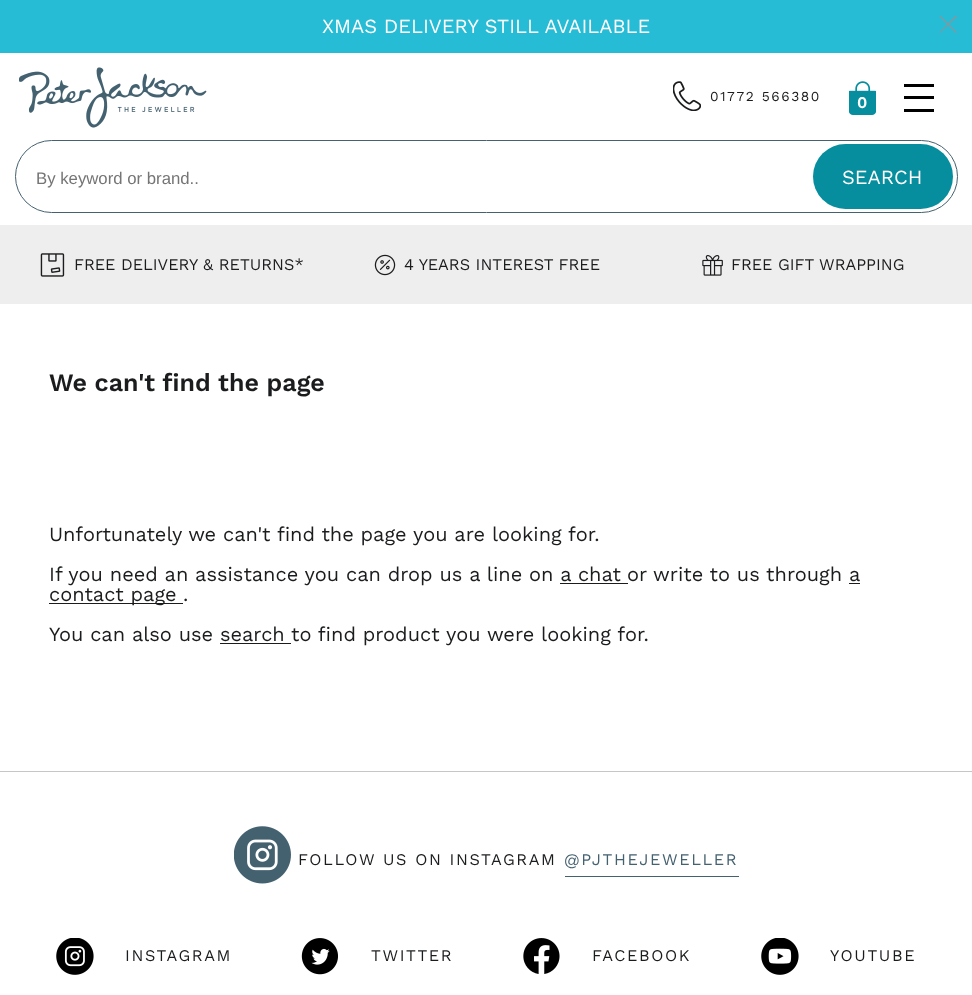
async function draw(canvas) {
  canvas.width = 972
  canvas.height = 995
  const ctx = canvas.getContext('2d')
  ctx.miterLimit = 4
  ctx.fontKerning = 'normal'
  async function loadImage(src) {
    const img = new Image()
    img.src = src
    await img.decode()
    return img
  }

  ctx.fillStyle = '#fff'
  ctx.fillRect(0, 0, 972, 995)
  ctx.fillStyle = '#26bcd5'
  ctx.fillRect(0, 0, 972, 53)
  ctx.font = '20px Work Sans'
  ctx.fillStyle = '#fff'
  ctx.fillText('XMAS DELIVERY STILL AVAILABLE', 322, 33)
  ctx.fillStyle = '#959194'
  ctx.beginPath()
  ctx.moveTo(940, 15.5)
  ctx.lineTo(957, 32.5)
  ctx.lineTo(956, 33)
  ctx.lineTo(939.5, 16.5)
  ctx.closePath()
  ctx.fill()
  ctx.beginPath()
  ctx.moveTo(939.5, 32.5)
  ctx.lineTo(956, 15.5)
  ctx.lineTo(957, 16.5)
  ctx.lineTo(940, 33)
  ctx.closePath()
  ctx.fill()
  ctx.drawImage(await loadImage('image0.png'), 19, 67, 188, 61)
  ctx.drawImage(await loadImage('image1.png'), 673, 81, 28, 30)
  ctx.letterSpacing = '1.6px'
  ctx.font = '13.75px Work Sans'
  ctx.fillStyle = '#1b1c1e'
  ctx.fillText('01772 566380', 710, 101)
  ctx.drawImage(await loadImage('image2.png'), 849, 81, 27, 34)
  ctx.letterSpacing = '0px'
  ctx.font = '600 16.25px Work Sans'
  ctx.fillStyle = '#fff'
  ctx.fillText('0', 857, 108)
  ctx.fillStyle = '#000'
  ctx.fillRect(904, 96, 30, 3)
  ctx.fillRect(904, 84, 30, 3)
  ctx.fillRect(904, 109, 30, 3)
  ctx.beginPath()
  ctx.roundRect(15.5, 140.5, 942, 72, 36)
  ctx.strokeStyle = '#446170'
  ctx.stroke()
  ctx.font = '16.75px Liberation Sans'
  ctx.fillStyle = '#757575'
  ctx.fillText('By keyword or brand..', 36, 184)
  ctx.fillStyle = '#068e9e'
  ctx.beginPath()
  ctx.roundRect(813, 144, 140, 65, 32.5)
  ctx.fill()
  ctx.font = '20px Work Sans'
  ctx.fillStyle = '#fff'
  ctx.fillText('SEARCH', 842, 184)
  ctx.fillStyle = '#efeeee'
  ctx.fillRect(0, 225, 972, 79)
  ctx.drawImage(await loadImage('image3.png'), 40, 253, 25, 24)
  ctx.font = '16.25px Work Sans'
  ctx.fillStyle = '#1b1c1e'
  ctx.fillText('FREE DELIVERY & RETURNS*', 74, 270)
  ctx.drawImage(await loadImage('image4.png'), 374, 254, 22, 22)
  ctx.fillText('4 YEARS INTEREST FREE', 404, 270)
  ctx.drawImage(await loadImage('image5.png'), 702, 255, 21, 21)
  ctx.fillText('FREE GIFT WRAPPING', 731, 270)
  ctx.font = '600 25px Work Sans'
  ctx.fillText('We can\'t find the page', 49, 391)
  ctx.font = '20px Work Sans'
  ctx.fillText('Unfortunately we can\'t find the page you are looking for.', 49, 541)
  ctx.fillText('If you need an assistance you can drop us a line on a chat', 49, 581)
  ctx.fillText('or write to us through a', 627, 581)
  ctx.fillRect(560, 583, 68, 1)
  ctx.fillRect(49, 603, 134, 1)
  ctx.fillText('contact page', 49, 601)
  ctx.fillRect(849, 583, 11, 1)
  ctx.fillText('.', 183, 601)
  ctx.fillText('You can also use search', 49, 641)
  ctx.fillText('to find product you were looking for.', 291, 641)
  ctx.fillRect(220, 643, 71, 1)
  ctx.fillStyle = '#c7c6c7'
  ctx.fillRect(0, 771, 972, 1)
  ctx.drawImage(await loadImage('image6.png'), 234, 826, 57, 58)
  ctx.letterSpacing = '1.6px'
  ctx.font = '16.25px Work Sans'
  ctx.fillStyle = '#1b1c1e'
  ctx.fillText('FOLLOW US ON INSTAGRAM', 298, 865)
  ctx.fillStyle = '#446170'
  ctx.fillRect(565, 876, 174, 1)
  ctx.fillText('@PJTHEJEWELLER', 564, 865)
  ctx.drawImage(await loadImage('image7.png'), 56, 938, 38, 37)
  ctx.fillStyle = '#1b1c1e'
  ctx.fillText('INSTAGRAM', 125, 961)
  ctx.drawImage(await loadImage('image8.png'), 301, 938, 37, 37)
  ctx.fillText('TWITTER', 371, 961)
  ctx.drawImage(await loadImage('image9.png'), 523, 938, 37, 36)
  ctx.fillText('FACEBOOK', 592, 961)
  ctx.drawImage(await loadImage('image10.png'), 761, 938, 38, 37)
  ctx.fillText('YOUTUBE', 830, 961)
}

draw(document.querySelector('canvas'))
